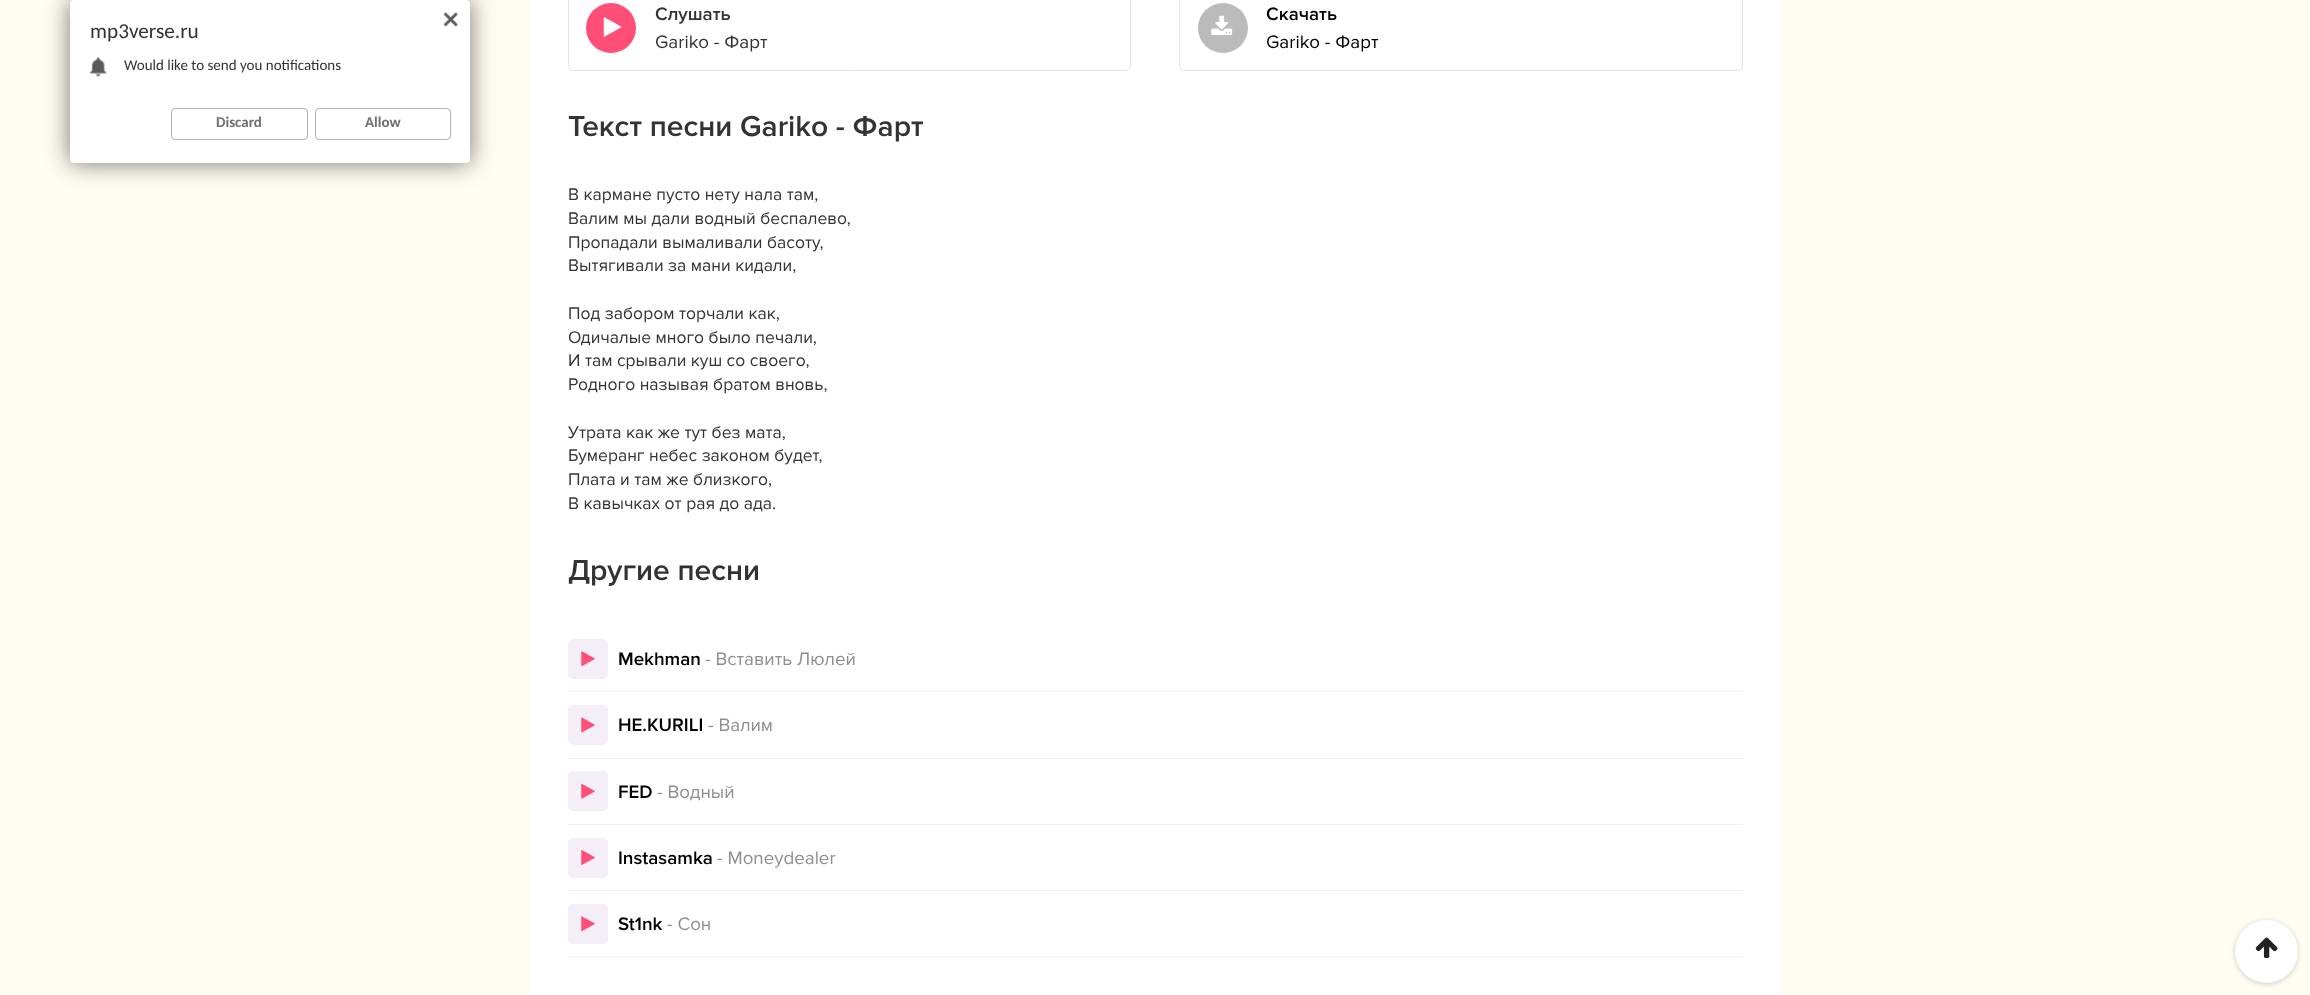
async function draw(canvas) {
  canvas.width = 2310
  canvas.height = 995
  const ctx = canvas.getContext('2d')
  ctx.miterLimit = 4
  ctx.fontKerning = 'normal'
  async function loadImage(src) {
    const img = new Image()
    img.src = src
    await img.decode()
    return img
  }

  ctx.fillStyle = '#fffdf1'
  ctx.fillRect(0, 0, 2310, 995)
  ctx.fillStyle = '#0000008a'
  ctx.filter = 'blur(12.5px)'
  ctx.beginPath()
  ctx.roundRect(70, 0, 400, 163, 4)
  ctx.fill()
  ctx.filter = 'none'
  ctx.fillStyle = '#fff'
  ctx.beginPath()
  ctx.roundRect(70, 0, 400, 163, 4)
  ctx.fill()
  ctx.drawImage(await loadImage('image0.png'), 443, 12, 15, 15)
  ctx.font = '21.25px Carlito'
  ctx.fillStyle = '#333'
  ctx.fillText('mp3verse.ru', 90, 38)
  ctx.drawImage(await loadImage('image1.png'), 90, 57, 17, 20)
  ctx.font = '15px Carlito'
  ctx.fillText('Would like to send you notifications', 124, 70)
  ctx.beginPath()
  ctx.roundRect(171.5, 108.5, 136, 31, 3.5)
  ctx.strokeStyle = '#afafaf'
  ctx.stroke()
  ctx.font = 'bold 15px Carlito'
  ctx.fillStyle = '#6f6f6f'
  ctx.fillText('Discard', 216, 127)
  ctx.beginPath()
  ctx.roundRect(315.5, 108.5, 135, 31, 3.5)
  ctx.stroke()
  ctx.fillText('Allow', 365, 127)
  ctx.fillStyle = '#fff'
  ctx.fillRect(530, 0, 1250, 995)
  ctx.beginPath()
  ctx.roundRect(568.5, -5.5, 562, 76, 4.5)
  ctx.strokeStyle = '#e3e3e3'
  ctx.stroke()
  ctx.fillStyle = '#ff4f77'
  ctx.beginPath()
  ctx.arc(611, 28, 25, 0, 2 * Math.PI)
  ctx.fill()
  ctx.drawImage(await loadImage('image2.png'), 603, 17, 19, 20)
  ctx.font = '600 18.75px Proxima Nova'
  ctx.fillStyle = '#333'
  ctx.fillText('Слушать', 655, 20)
  ctx.font = '18.75px Proxima Nova'
  ctx.fillText('Gariko - Фарт', 655, 48)
  ctx.beginPath()
  ctx.roundRect(1179.5, -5.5, 563, 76, 4.5)
  ctx.stroke()
  ctx.fillStyle = '#bbb'
  ctx.beginPath()
  ctx.arc(1223, 28, 25, 0, 2 * Math.PI)
  ctx.fill()
  ctx.drawImage(await loadImage('image3.png'), 1211, 15, 22, 20)
  ctx.font = '600 18.75px Proxima Nova'
  ctx.fillStyle = '#000'
  ctx.fillText('Скачать', 1266, 20)
  ctx.font = '18.75px Proxima Nova'
  ctx.fillText('Gariko - Фарт', 1266, 48)
  ctx.font = '600 30px Proxima Nova'
  ctx.fillStyle = '#333'
  ctx.fillText('Текст песни Gariko - Фарт', 568, 136)
  ctx.font = '17.5px Proxima Nova'
  ctx.fillText('В кармане пусто нету нала там,', 568, 200)
  ctx.fillText('Валим мы дали водный беспалево,', 568, 224)
  ctx.fillText('Пропадали вымаливали басоту,', 568, 248)
  ctx.fillText('Вытягивали за мани кидали,', 568, 271)
  ctx.fillText('Под забором торчали как,', 568, 319)
  ctx.fillText('Одичалые много было печали,', 568, 343)
  ctx.fillText('И там срывали куш со своего,', 568, 366)
  ctx.fillText('Родного называя братом вновь,', 568, 390)
  ctx.fillText('Утрата как же тут без мата,', 568, 438)
  ctx.fillText('Бумеранг небес законом будет,', 568, 461)
  ctx.fillText('Плата и там же близкого,', 568, 485)
  ctx.fillText('В кавычках от рая до ада.', 568, 509)
  ctx.font = '600 30px Proxima Nova'
  ctx.fillText('Другие песни', 568, 580)
  ctx.fillStyle = '#f4eef8'
  ctx.fillRect(568, 691, 1175, 1)
  ctx.beginPath()
  ctx.roundRect(568, 639, 40, 40, 5)
  ctx.fill()
  ctx.drawImage(await loadImage('image4.png'), 581, 651, 14, 16)
  ctx.font = '600 18.75px Proxima Nova'
  ctx.fillStyle = '#000'
  ctx.fillText('Mekhman', 618, 665)
  ctx.font = '18.75px Proxima Nova'
  ctx.fillStyle = '#8b8e94'
  ctx.fillText('- Вставить Люлей', 705, 665)
  ctx.fillStyle = '#f4eef8'
  ctx.fillRect(568, 758, 1175, 1)
  ctx.beginPath()
  ctx.roundRect(568, 705, 40, 40, 5)
  ctx.fill()
  ctx.drawImage(await loadImage('image5.png'), 581, 717, 14, 16)
  ctx.font = '600 18.75px Proxima Nova'
  ctx.fillStyle = '#000'
  ctx.fillText('НЕ.KURILI', 618, 731)
  ctx.font = '18.75px Proxima Nova'
  ctx.fillStyle = '#8b8e94'
  ctx.fillText('- Валим', 708, 731)
  ctx.fillStyle = '#f4eef8'
  ctx.fillRect(568, 824, 1175, 1)
  ctx.beginPath()
  ctx.roundRect(568, 771, 40, 40, 5)
  ctx.fill()
  ctx.drawImage(await loadImage('image6.png'), 581, 783, 14, 16)
  ctx.font = '600 18.75px Proxima Nova'
  ctx.fillStyle = '#000'
  ctx.fillText('FED', 618, 798)
  ctx.font = '18.75px Proxima Nova'
  ctx.fillStyle = '#8b8e94'
  ctx.fillText('- Водный', 657, 798)
  ctx.fillStyle = '#f4eef8'
  ctx.fillRect(568, 890, 1175, 1)
  ctx.beginPath()
  ctx.roundRect(568, 838, 40, 40, 5)
  ctx.fill()
  ctx.drawImage(await loadImage('image7.png'), 581, 850, 14, 15)
  ctx.font = '600 18.75px Proxima Nova'
  ctx.fillStyle = '#000'
  ctx.fillText('Instasamka', 618, 864)
  ctx.font = '18.75px Proxima Nova'
  ctx.fillStyle = '#8b8e94'
  ctx.fillText('- Moneydealer', 717, 864)
  ctx.fillStyle = '#f4eef8'
  ctx.fillRect(568, 956, 1175, 1)
  ctx.beginPath()
  ctx.roundRect(568, 904, 40, 40, 5)
  ctx.fill()
  ctx.drawImage(await loadImage('image4.png'), 581, 916, 14, 16)
  ctx.font = '600 18.75px Proxima Nova'
  ctx.fillStyle = '#000'
  ctx.fillText('St1nk', 618, 930)
  ctx.font = '18.75px Proxima Nova'
  ctx.fillStyle = '#8b8e94'
  ctx.fillText('- Сон', 667, 930)
  ctx.fillStyle = '#00000033'
  ctx.filter = 'blur(2.5px)'
  ctx.beginPath()
  ctx.roundRect(2235, 921, 63, 63, 31.5)
  ctx.fill()
  ctx.filter = 'none'
  ctx.fillStyle = '#fff'
  ctx.beginPath()
  ctx.arc(2266.5, 951.5, 31.5, 0, 2 * Math.PI)
  ctx.fill()
  ctx.drawImage(await loadImage('image8.png'), 2255, 937, 23, 22)
}

draw(document.querySelector('canvas'))
